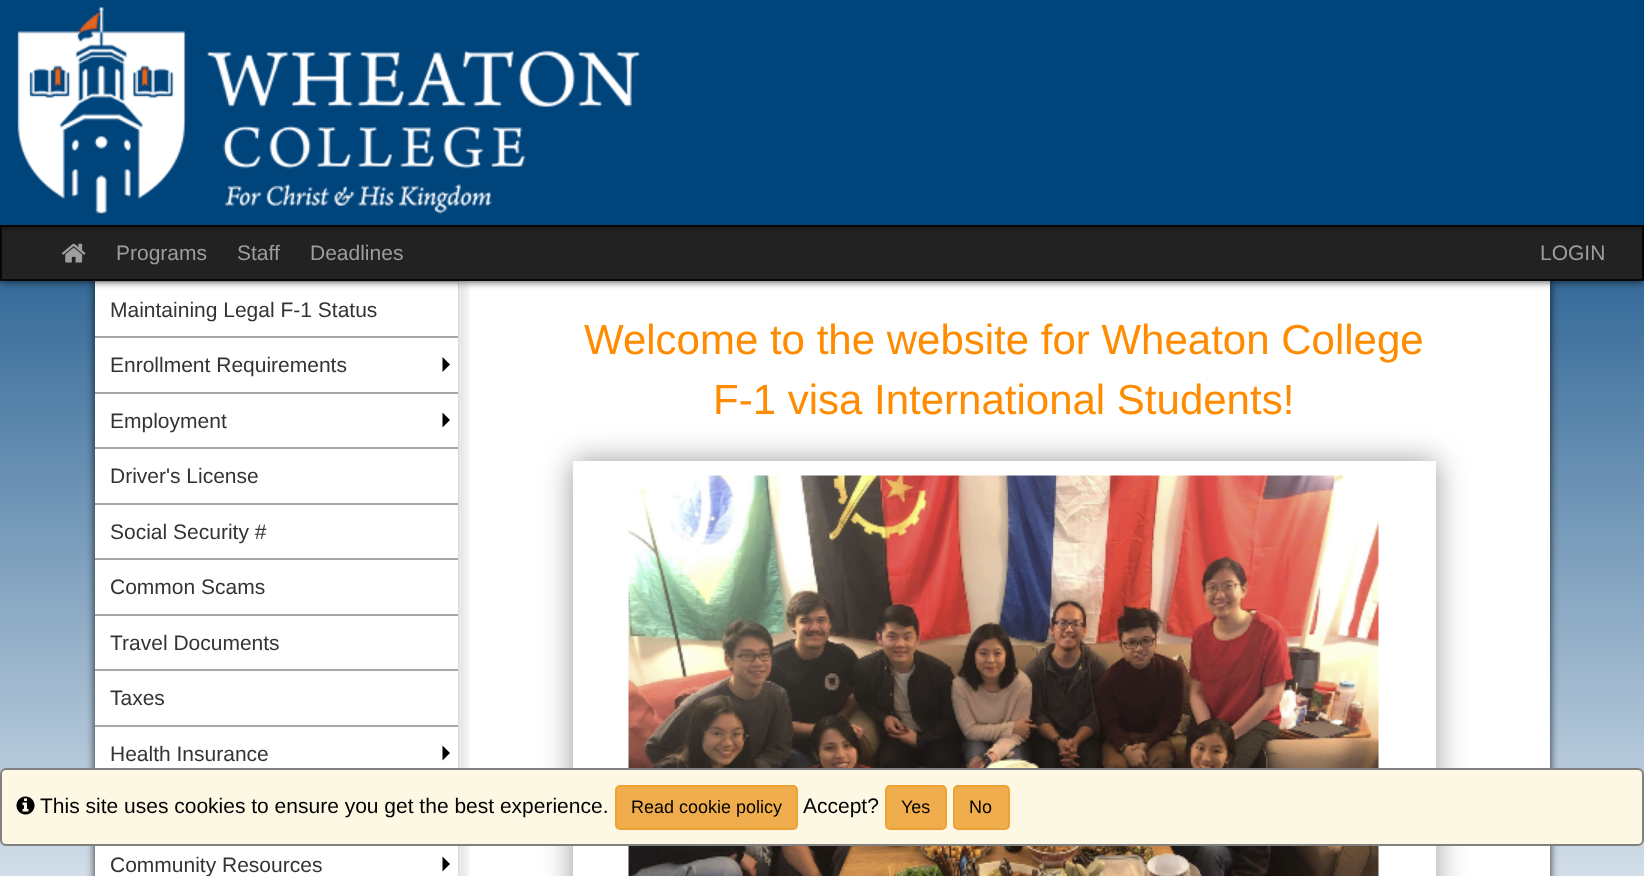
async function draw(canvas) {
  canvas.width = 1644
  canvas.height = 876
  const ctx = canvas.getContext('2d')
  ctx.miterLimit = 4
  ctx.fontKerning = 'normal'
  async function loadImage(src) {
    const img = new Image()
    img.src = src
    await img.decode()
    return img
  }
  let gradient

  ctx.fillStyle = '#fff'
  ctx.fillRect(0, 0, 1644, 876)
  gradient = ctx.createLinearGradient(822, 0, 822, 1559)
  gradient.addColorStop(0.05, '#00437e')
  gradient.addColorStop(0.67, '#fff')
  ctx.fillStyle = gradient
  ctx.fillRect(0, 281, 1644, 595)
  ctx.fillStyle = '#000000cc'
  ctx.filter = 'blur(4px)'
  ctx.beginPath()
  ctx.rect(95, 281, 1455, 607)
  ctx.fill()
  ctx.filter = 'none'
  ctx.fillStyle = '#fff'
  ctx.fillRect(95, 281, 1455, 595)
  ctx.save()
  ctx.beginPath()
  ctx.rect(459, 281, 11, 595)
  ctx.clip()
  ctx.fillStyle = '#0000001a'
  ctx.filter = 'blur(4px)'
  ctx.beginPath()
  ctx.rect(102, 281, 365, 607)
  ctx.fill()
  ctx.filter = 'none'
  ctx.restore()
  ctx.fillStyle = '#00000026'
  ctx.beginPath()
  ctx.moveTo(94, 280)
  ctx.lineTo(459, 280)
  ctx.lineTo(458, 282)
  ctx.lineTo(94, 282)
  ctx.closePath()
  ctx.fill()
  ctx.beginPath()
  ctx.moveTo(459, 280)
  ctx.lineTo(459, 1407)
  ctx.lineTo(458, 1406)
  ctx.lineTo(458, 282)
  ctx.closePath()
  ctx.fill()
  ctx.fillStyle = '#000000cc'
  ctx.filter = 'blur(4px)'
  ctx.beginPath()
  ctx.rect(0, 225, 1644, 56)
  ctx.fill()
  ctx.filter = 'none'
  ctx.fillStyle = '#222'
  ctx.beginPath()
  ctx.rect(1, 226, 1642, 54)
  ctx.fill()
  ctx.strokeStyle = '#080808'
  ctx.lineWidth = 2
  ctx.stroke()
  ctx.fillStyle = '#000000cc'
  ctx.filter = 'blur(4px)'
  ctx.beginPath()
  ctx.rect(0, 0, 1644, 225)
  ctx.fill()
  ctx.filter = 'none'
  ctx.fillStyle = '#00447c'
  ctx.fillRect(0, 0, 1644, 225)
  ctx.drawImage(await loadImage('image0.png'), 17, 7, 623, 207)
  ctx.drawImage(await loadImage('image1.png'), 61, 243, 25, 20)
  ctx.font = '21px Liberation Sans'
  ctx.fillStyle = '#9d9d9d'
  ctx.fillText('Programs', 116, 260)
  ctx.fillText('Staff', 237, 260)
  ctx.fillText('Deadlines', 310, 260)
  ctx.fillText('LOGIN', 1540, 260)
  ctx.fillStyle = '#a6a6a6'
  ctx.fillRect(95, 336, 363, 2)
  ctx.fillStyle = '#333'
  ctx.fillText('Maintaining Legal F-1 Status', 110, 317)
  ctx.fillStyle = '#a6a6a6'
  ctx.fillRect(95, 392, 363, 2)
  ctx.fillStyle = '#333'
  ctx.fillText('Enrollment Requirements', 110, 372)
  ctx.fillStyle = '#000'
  ctx.beginPath()
  ctx.moveTo(442.5, 372)
  ctx.lineTo(442.5, 357)
  ctx.lineTo(450, 364.5)
  ctx.closePath()
  ctx.fill()
  ctx.fillStyle = '#a6a6a6'
  ctx.fillRect(95, 447, 363, 2)
  ctx.fillStyle = '#333'
  ctx.fillText('Employment', 110, 428)
  ctx.fillStyle = '#000'
  ctx.beginPath()
  ctx.moveTo(442.5, 427.5)
  ctx.lineTo(442.5, 412.5)
  ctx.lineTo(450, 420)
  ctx.closePath()
  ctx.fill()
  ctx.fillStyle = '#a6a6a6'
  ctx.fillRect(95, 503, 363, 2)
  ctx.fillStyle = '#333'
  ctx.fillText('Driver\'s License', 110, 483)
  ctx.fillStyle = '#a6a6a6'
  ctx.fillRect(95, 558, 363, 2)
  ctx.fillStyle = '#333'
  ctx.fillText('Social Security #', 110, 539)
  ctx.fillStyle = '#a6a6a6'
  ctx.fillRect(95, 614, 363, 2)
  ctx.fillStyle = '#333'
  ctx.fillText('Common Scams', 110, 594)
  ctx.fillStyle = '#a6a6a6'
  ctx.fillRect(95, 669, 363, 2)
  ctx.fillStyle = '#333'
  ctx.fillText('Travel Documents', 110, 650)
  ctx.fillStyle = '#a6a6a6'
  ctx.fillRect(95, 725, 363, 2)
  ctx.fillStyle = '#333'
  ctx.fillText('Taxes', 110, 705)
  ctx.fillText('Health Insurance', 110, 761)
  ctx.fillStyle = '#000'
  ctx.beginPath()
  ctx.moveTo(442.5, 760.5)
  ctx.lineTo(442.5, 745.5)
  ctx.lineTo(450, 753)
  ctx.closePath()
  ctx.fill()
  ctx.fillStyle = '#333'
  ctx.fillText('Community Resources', 110, 872)
  ctx.fillStyle = '#000'
  ctx.beginPath()
  ctx.moveTo(442.5, 871.5)
  ctx.lineTo(442.5, 856.5)
  ctx.lineTo(450, 864)
  ctx.closePath()
  ctx.fill()
  ctx.font = '42px Liberation Sans'
  ctx.fillStyle = '#ff8c00'
  ctx.fillText('Welcome to the website for Wheaton College', 584, 354)
  ctx.fillText('F-1 visa International Students!', 713, 414)
  ctx.save()
  ctx.beginPath()
  ctx.moveTo(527, 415)
  ctx.lineTo(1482, 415)
  ctx.lineTo(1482, 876)
  ctx.lineTo(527, 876)
  ctx.closePath()
  ctx.moveTo(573, 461)
  ctx.lineTo(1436, 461)
  ctx.lineTo(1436, 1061)
  ctx.lineTo(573, 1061)
  ctx.closePath()
  ctx.clip('evenodd')
  ctx.fillStyle = '#00000066'
  ctx.filter = 'blur(15px)'
  ctx.beginPath()
  ctx.rect(573, 461, 863, 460)
  ctx.fill()
  ctx.filter = 'none'
  ctx.restore()
  ctx.drawImage(await loadImage('image2.png'), 628, 475, 751, 401)
  ctx.fillStyle = '#fcf8e3'
  ctx.beginPath()
  ctx.roundRect(1, 769, 1642, 76, 5)
  ctx.fill()
  ctx.strokeStyle = '#808080'
  ctx.stroke()
  ctx.drawImage(await loadImage('image3.png'), 16, 796, 19, 19)
  ctx.font = '21px Liberation Sans'
  ctx.fillStyle = '#000'
  ctx.fillText('This site uses cookies to ensure you get the best experience.', 40, 813)
  ctx.fillStyle = '#f0ad4e'
  ctx.beginPath()
  ctx.roundRect(616, 786, 181, 43, 4)
  ctx.fill()
  ctx.strokeStyle = '#eea236'
  ctx.stroke()
  ctx.font = '18px Liberation Sans'
  ctx.fillStyle = '#000'
  ctx.fillText('Read cookie policy', 631, 813)
  ctx.font = '21px Liberation Sans'
  ctx.fillText('Accept?', 803, 813)
  ctx.fillStyle = '#f0ad4e'
  ctx.beginPath()
  ctx.roundRect(886, 786, 60, 43, 4)
  ctx.fill()
  ctx.stroke()
  ctx.font = '18px Liberation Sans'
  ctx.fillStyle = '#000'
  ctx.fillText('Yes', 901, 813)
  ctx.fillStyle = '#f0ad4e'
  ctx.beginPath()
  ctx.roundRect(954, 786, 55, 43, 4)
  ctx.fill()
  ctx.stroke()
  ctx.fillStyle = '#000'
  ctx.fillText('No', 969, 813)
}

draw(document.querySelector('canvas'))
